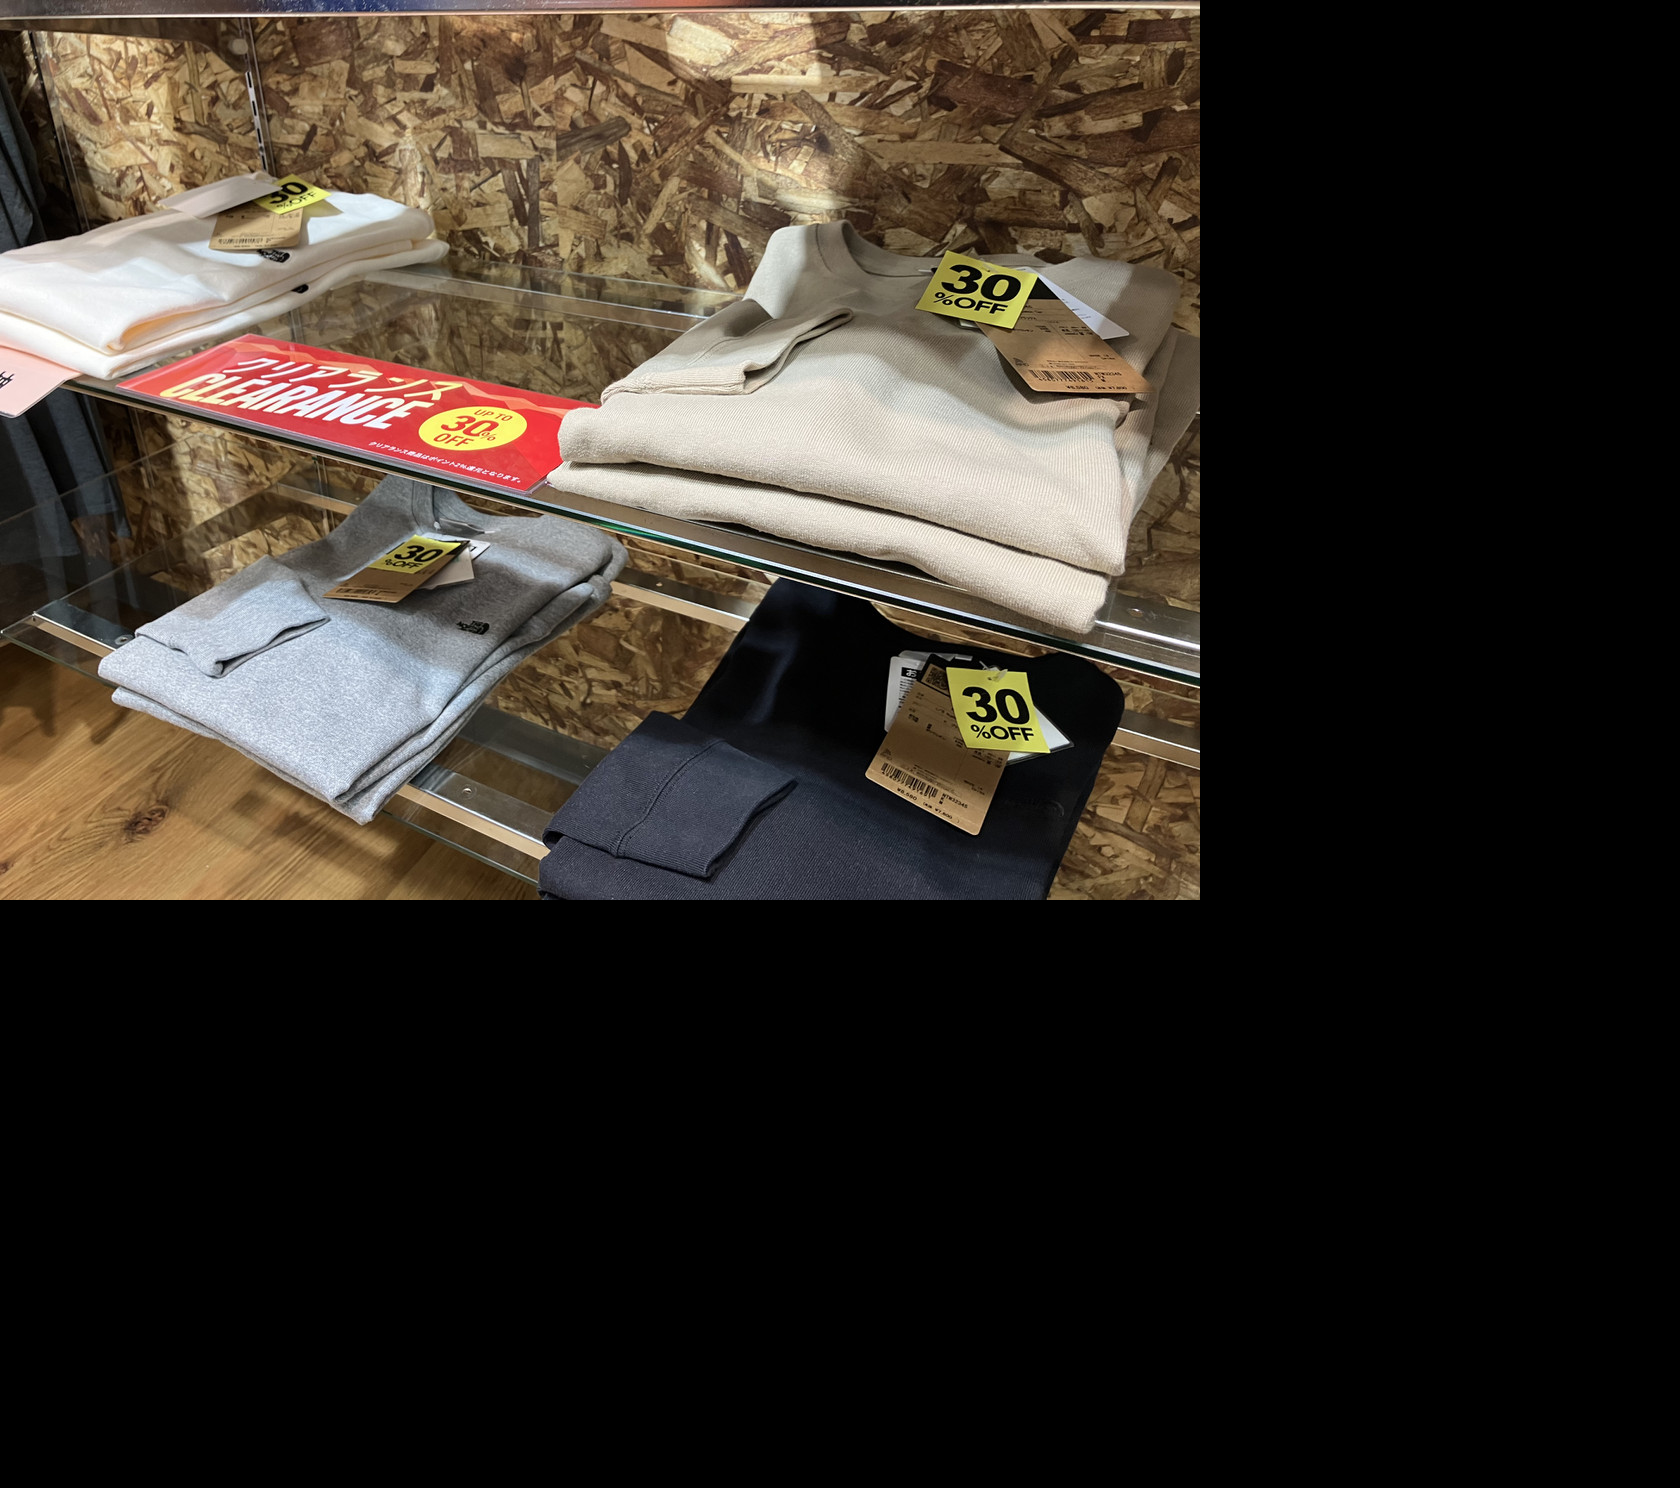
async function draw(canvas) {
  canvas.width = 1680
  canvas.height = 1488
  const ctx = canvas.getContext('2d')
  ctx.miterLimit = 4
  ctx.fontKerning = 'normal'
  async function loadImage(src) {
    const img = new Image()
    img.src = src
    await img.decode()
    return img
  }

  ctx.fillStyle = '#000'
  ctx.fillRect(0, 0, 1680, 1488)
  ctx.drawImage(await loadImage('image0.png'), 0, 0, 1200, 900)
}

draw(document.querySelector('canvas'))
